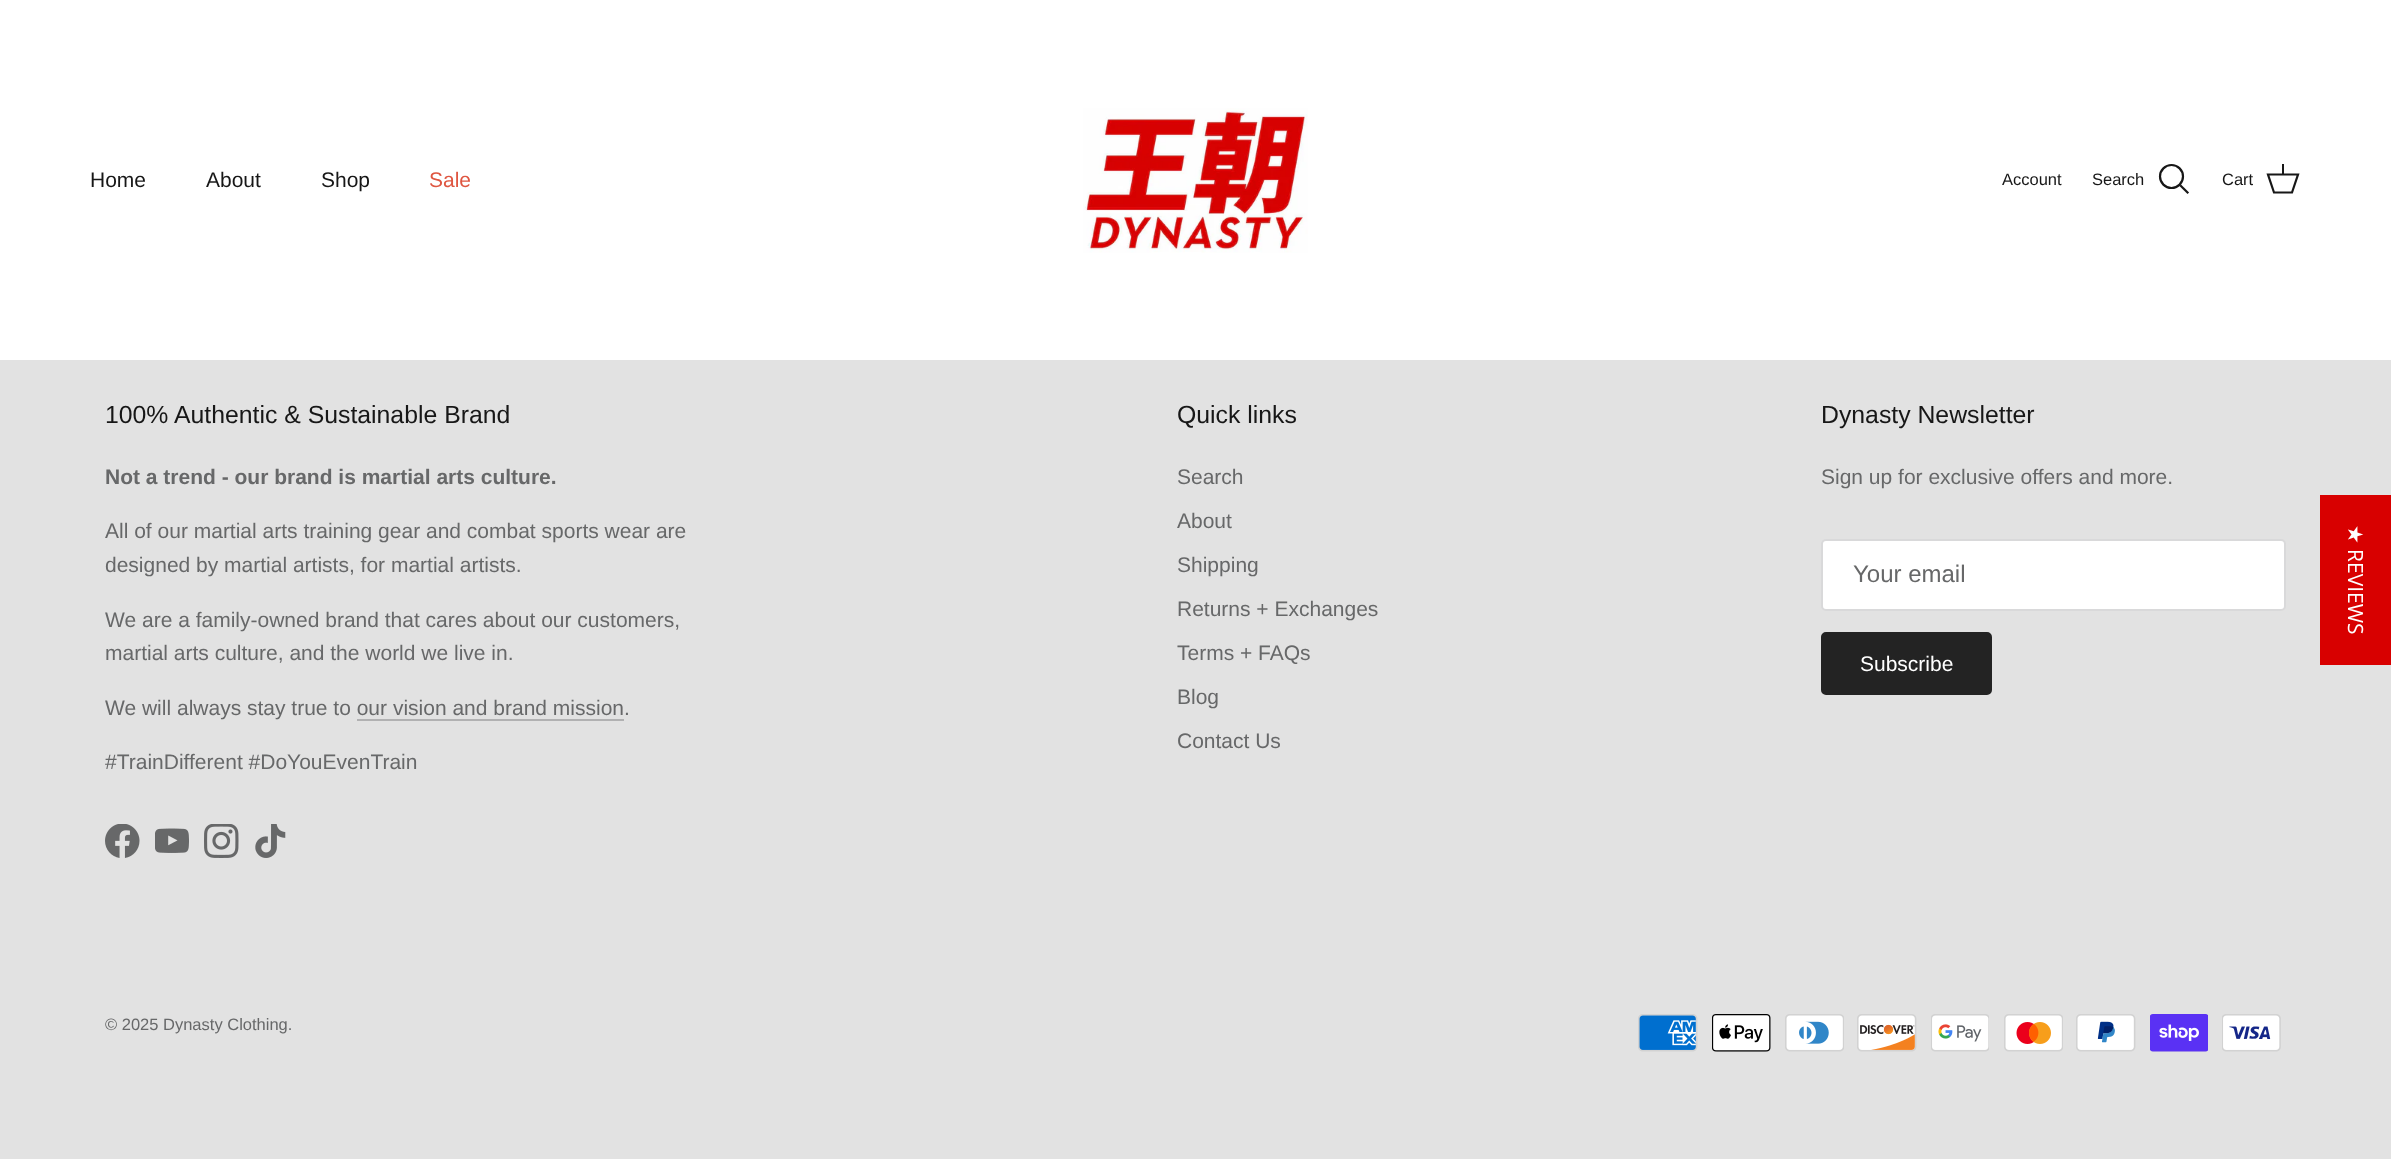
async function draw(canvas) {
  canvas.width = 2391
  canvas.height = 1159
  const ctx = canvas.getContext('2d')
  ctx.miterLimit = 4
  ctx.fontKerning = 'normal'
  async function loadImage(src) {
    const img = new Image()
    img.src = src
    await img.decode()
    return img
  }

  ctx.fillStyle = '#e2e2e2'
  ctx.fillRect(0, 0, 2391, 1159)
  ctx.fillStyle = '#fff'
  ctx.fillRect(0, 0, 2391, 360)
  ctx.font = '21px Arimo'
  ctx.fillStyle = '#171717'
  ctx.fillText('Home', 90, 187)
  ctx.fillText('About', 206, 187)
  ctx.fillText('Shop', 321, 187)
  ctx.fillStyle = '#df5641'
  ctx.fillText('Sale', 429, 187)
  ctx.drawImage(await loadImage('image0.png'), 1083, 108, 225, 145)
  ctx.font = '16.5px Arimo'
  ctx.fillStyle = '#171717'
  ctx.fillText('Account', 2002, 185)
  ctx.fillText('Search', 2092, 185)
  ctx.beginPath()
  ctx.arc(2171.5, 176.5, 11.5, 0, 2 * Math.PI)
  ctx.strokeStyle = '#171717'
  ctx.lineWidth = 2.2
  ctx.stroke()
  ctx.beginPath()
  ctx.moveTo(2181, 186)
  ctx.lineTo(2187.5, 192.5)
  ctx.lineCap = 'square'
  ctx.stroke()
  ctx.fillText('Cart', 2222, 185)
  ctx.beginPath()
  ctx.moveTo(2268, 174.5)
  ctx.lineTo(2298, 174.5)
  ctx.lineTo(2292, 192.5)
  ctx.lineTo(2274, 192.5)
  ctx.closePath()
  ctx.lineCap = 'butt'
  ctx.stroke()
  ctx.fillRect(2282, 164, 2, 11)
  ctx.font = '24.8px Arimo'
  ctx.fillText('100% Authentic & Sustainable Brand', 105, 423)
  ctx.font = 'bold 21px Arimo'
  ctx.fillStyle = '#676869'
  ctx.fillText('Not a trend - our brand is martial arts culture.', 105, 484)
  ctx.font = '21px Arimo'
  ctx.fillText('All of our martial arts training gear and combat sports wear are', 105, 538)
  ctx.fillText('designed by martial artists, for martial artists.', 105, 572)
  ctx.fillText('We are a family-owned brand that cares about our customers,', 105, 627)
  ctx.fillText('martial arts culture, and the world we live in.', 105, 660)
  ctx.fillText('We will always stay true to our vision and brand mission.', 105, 715)
  ctx.fillStyle = '#b1b1b2'
  ctx.fillRect(357, 719, 267, 2)
  ctx.fillStyle = '#676869'
  ctx.fillText('#TrainDifferent #DoYouEvenTrain', 105, 769)
  ctx.drawImage(await loadImage('image1.png'), 105, 824, 35, 34)
  ctx.drawImage(await loadImage('image2.png'), 155, 828, 34, 25)
  ctx.drawImage(await loadImage('image3.png'), 204, 824, 35, 34)
  ctx.drawImage(await loadImage('image4.png'), 255, 824, 31, 34)
  ctx.font = '24.8px Arimo'
  ctx.fillStyle = '#171717'
  ctx.fillText('Quick links', 1177, 423)
  ctx.font = '21px Arimo'
  ctx.fillStyle = '#676869'
  ctx.fillText('Search', 1177, 484)
  ctx.fillText('About', 1177, 528)
  ctx.fillText('Shipping', 1177, 572)
  ctx.fillText('Returns + Exchanges', 1177, 616)
  ctx.fillText('Terms + FAQs', 1177, 660)
  ctx.fillText('Blog', 1177, 704)
  ctx.fillText('Contact Us', 1177, 748)
  ctx.font = '24.8px Arimo'
  ctx.fillStyle = '#171717'
  ctx.fillText('Dynasty Newsletter', 1821, 423)
  ctx.font = '21px Arimo'
  ctx.fillStyle = '#676869'
  ctx.fillText('Sign up for exclusive offers and more.', 1821, 484)
  ctx.fillStyle = '#fff'
  ctx.beginPath()
  ctx.roundRect(1822, 540, 463, 70, 4)
  ctx.fill()
  ctx.strokeStyle = '#d9d9da'
  ctx.lineWidth = 2
  ctx.stroke()
  ctx.font = '24px Arimo'
  ctx.fillStyle = '#676869'
  ctx.fillText('Your email', 1853, 582)
  ctx.fillStyle = '#232323'
  ctx.beginPath()
  ctx.roundRect(1822, 633, 169, 61, 4)
  ctx.fill()
  ctx.strokeStyle = '#232323'
  ctx.stroke()
  ctx.font = '21px Arimo'
  ctx.fillStyle = '#fff'
  ctx.fillText('Subscribe', 1860, 671)
  ctx.font = '16.5px Arimo'
  ctx.fillStyle = '#676869'
  ctx.fillText('© 2025 Dynasty Clothing.', 105, 1030)
  ctx.drawImage(await loadImage('image5.png'), 1638, 1014, 60, 38)
  ctx.drawImage(await loadImage('image6.png'), 1712, 1014, 59, 38)
  ctx.drawImage(await loadImage('image7.png'), 1785, 1014, 59, 38)
  ctx.drawImage(await loadImage('image8.png'), 1857, 1014, 60, 38)
  ctx.drawImage(await loadImage('image9.png'), 1931, 1014, 58, 38)
  ctx.drawImage(await loadImage('image10.png'), 2004, 1014, 59, 38)
  ctx.drawImage(await loadImage('image11.png'), 2076, 1014, 60, 38)
  ctx.drawImage(await loadImage('image12.png'), 2150, 1014, 58, 38)
  ctx.drawImage(await loadImage('image13.png'), 2222, 1014, 59, 38)
  ctx.fillStyle = '#d80000'
  ctx.fillRect(2320, 495, 71, 170)
  ctx.font = '21px DejaVu Sans'
  ctx.fillStyle = '#fff'
  ctx.save()
  ctx.translate(2348, 525)
  ctx.rotate(90 * Math.PI / 180)
  ctx.fillText('★', 0, 0)
  ctx.restore()
  ctx.font = '21px Open Sans'
  ctx.save()
  ctx.translate(2348, 549)
  ctx.rotate(90 * Math.PI / 180)
  ctx.fillText('REVIEWS', 0, 0)
  ctx.restore()
}

draw(document.querySelector('canvas'))
